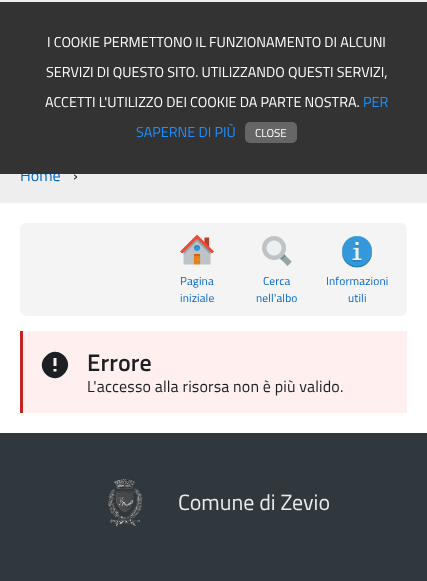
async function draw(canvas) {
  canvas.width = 427
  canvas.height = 581
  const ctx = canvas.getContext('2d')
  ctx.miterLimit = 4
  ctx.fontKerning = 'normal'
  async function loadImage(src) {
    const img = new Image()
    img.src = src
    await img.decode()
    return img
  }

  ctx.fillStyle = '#fff'
  ctx.fillRect(0, 0, 427, 581)
  ctx.fillStyle = '#eee'
  ctx.fillRect(0, 174, 427, 29)
  ctx.font = '16px Titillium Web'
  ctx.fillStyle = '#06c'
  ctx.fillText('Home', 20, 181)
  ctx.fillStyle = '#333'
  ctx.fillRect(0, 2, 427, 172)
  ctx.fillStyle = '#eee'
  ctx.fillRect(0, 0, 427, 2)
  ctx.font = '14.4px Titillium Web'
  ctx.fillStyle = '#fff'
  ctx.fillText('I COOKIE PERMETTONO IL FUNZIONAMENTO DI ALCUNI', 47, 47)
  ctx.fillText('SERVIZI DI QUESTO SITO. UTILIZZANDO QUESTI SERVIZI,', 46, 77)
  ctx.fillText('ACCETTI L\'UTILIZZO DEI COOKIE DA PARTE NOSTRA.', 45, 107)
  ctx.fillStyle = '#1e90ff'
  ctx.fillText('PER', 363, 107)
  ctx.fillText('SAPERNE DI PIÙ', 136, 137)
  ctx.fillStyle = '#666'
  ctx.beginPath()
  ctx.roundRect(245, 122, 52, 21, 5)
  ctx.fill()
  ctx.font = '11.5px Titillium Web'
  ctx.fillStyle = '#fff'
  ctx.fillText('CLOSE', 255, 137)
  ctx.font = '16px Titillium Web'
  ctx.fillStyle = '#1c2024'
  ctx.fillText('›', 73, 181)
  ctx.fillStyle = '#f4f4f4'
  ctx.beginPath()
  ctx.roundRect(20, 223, 387, 93, 6)
  ctx.fill()
  ctx.drawImage(await loadImage('image0.png'), 180, 234, 34, 31)
  ctx.letterSpacing = '0.15px'
  ctx.font = '11.5px Titillium Web'
  ctx.fillStyle = '#06c'
  ctx.fillText('Pagina', 180, 285)
  ctx.fillText('iniziale', 180, 302)
  ctx.drawImage(await loadImage('image1.png'), 262, 236, 30, 30)
  ctx.fillText('Cerca', 263, 285)
  ctx.fillText('nell\'albo', 256, 302)
  ctx.drawImage(await loadImage('image2.png'), 342, 236, 30, 32)
  ctx.fillText('Informazioni', 326, 285)
  ctx.fillText('utili', 348, 302)
  ctx.fillStyle = '#ffefef'
  ctx.fillRect(23, 331, 384, 82)
  ctx.fillStyle = '#c62121'
  ctx.fillRect(20, 331, 3, 82)
  ctx.fillStyle = '#1c2024'
  ctx.beginPath()
  ctx.moveTo(46, 356)
  ctx.bezierCurveTo(58, 343.5, 76.5, 362, 64, 374)
  ctx.bezierCurveTo(52, 386.5, 33.5, 368, 46, 356)
  ctx.closePath()
  ctx.moveTo(56.5, 371.5)
  ctx.lineTo(56.5, 369)
  ctx.lineTo(53.5, 369)
  ctx.lineTo(53.5, 371.5)
  ctx.closePath()
  ctx.moveTo(56.5, 366)
  ctx.lineTo(56.5, 358)
  ctx.lineTo(53.5, 358)
  ctx.lineTo(53.5, 366)
  ctx.closePath()
  ctx.fill()
  ctx.font = '600 24px Titillium Web'
  ctx.fillText('Errore', 87, 371)
  ctx.font = '16px Titillium Web'
  ctx.fillText('L\'accesso alla risorsa non è più valido.', 87, 392)
  ctx.fillStyle = '#30373d'
  ctx.fillRect(0, 433, 427, 148)
  ctx.drawImage(await loadImage('image3.png'), 108, 479, 34, 48)
  ctx.letterSpacing = '0px'
  ctx.font = '22px Titillium Web'
  ctx.fillStyle = '#eaebec'
  ctx.fillText('Comune di Zevio', 178, 510)
}

draw(document.querySelector('canvas'))
